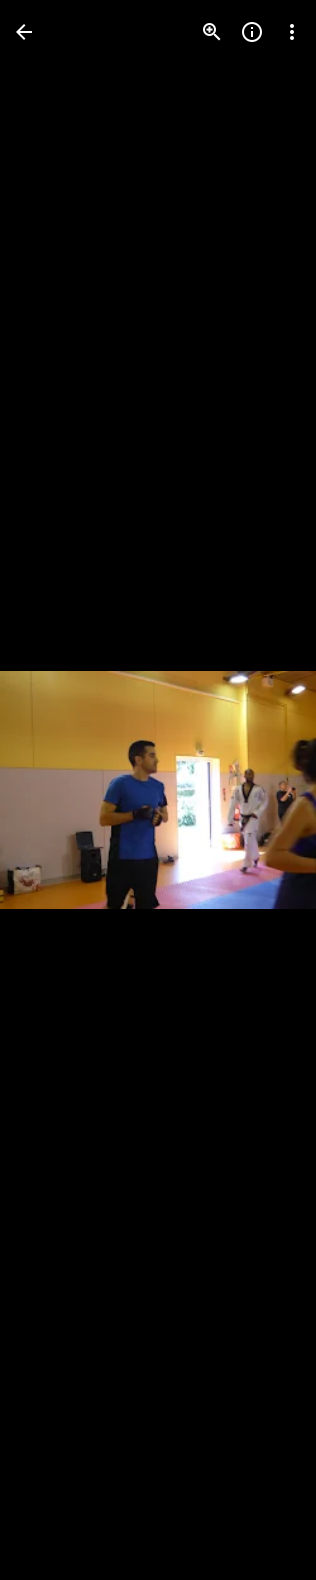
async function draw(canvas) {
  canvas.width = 316
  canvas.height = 1580
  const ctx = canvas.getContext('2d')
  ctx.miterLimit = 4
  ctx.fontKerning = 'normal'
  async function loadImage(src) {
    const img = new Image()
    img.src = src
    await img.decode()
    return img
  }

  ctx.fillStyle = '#000'
  ctx.fillRect(0, 0, 316, 1580)
  ctx.drawImage(await loadImage('image0.png'), 16, 24, 16, 16)
  ctx.drawImage(await loadImage('image1.png'), 203, 23, 18, 18)
  ctx.drawImage(await loadImage('image2.png'), 242, 22, 20, 20)
  ctx.drawImage(await loadImage('image3.png'), 290, 24, 4, 16)
  ctx.drawImage(await loadImage('image4.png'), 0, 671, 316, 238)
}

draw(document.querySelector('canvas'))
